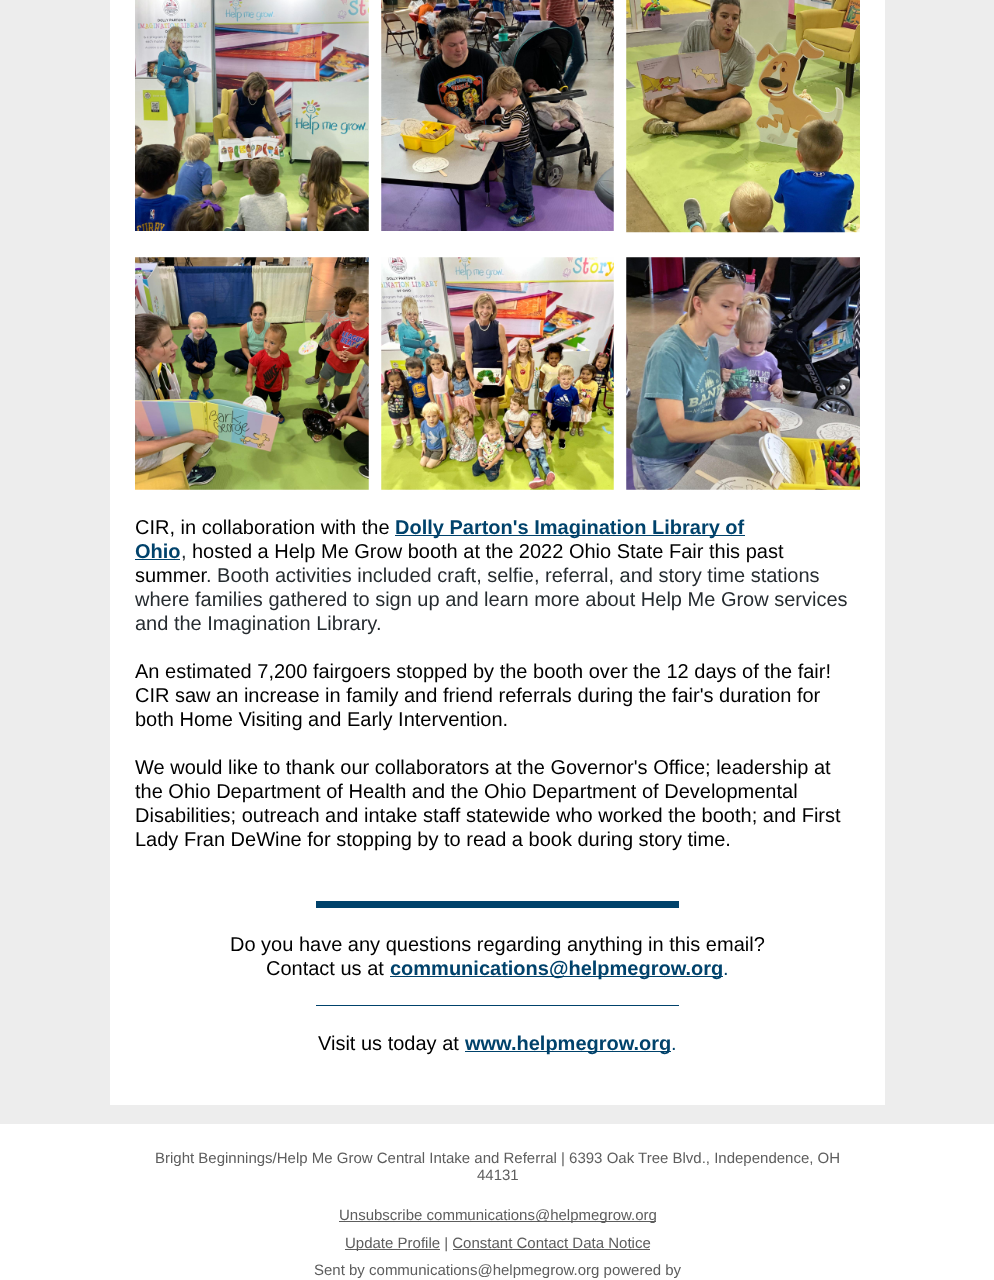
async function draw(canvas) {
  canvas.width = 994
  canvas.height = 1280
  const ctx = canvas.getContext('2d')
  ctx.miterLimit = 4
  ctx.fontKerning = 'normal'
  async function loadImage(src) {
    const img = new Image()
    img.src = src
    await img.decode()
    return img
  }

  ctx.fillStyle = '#ededed'
  ctx.fillRect(0, 0, 994, 1280)
  ctx.fillStyle = '#fff'
  ctx.fillRect(110, 0, 775, 1105)
  ctx.drawImage(await loadImage('image0.png'), 135, 0, 234, 231)
  ctx.drawImage(await loadImage('image1.png'), 381, 0, 233, 231)
  ctx.drawImage(await loadImage('image2.png'), 626, 0, 234, 233)
  ctx.drawImage(await loadImage('image3.png'), 135, 257, 234, 233)
  ctx.drawImage(await loadImage('image4.png'), 381, 257, 233, 233)
  ctx.drawImage(await loadImage('image5.png'), 626, 257, 234, 233)
  ctx.font = '20px Liberation Sans'
  ctx.fillStyle = '#000'
  ctx.fillText('CIR, in collaboration with the', 135, 534)
  ctx.fillStyle = '#00426b'
  ctx.fillRect(395, 535, 350, 1)
  ctx.font = 'bold 20px Liberation Sans'
  ctx.fillText('Dolly Parton\'s Imagination Library of', 395, 534)
  ctx.fillText('Ohio', 135, 558)
  ctx.fillRect(135, 559, 45, 1)
  ctx.font = '20px Liberation Sans'
  ctx.fillStyle = '#262c30'
  ctx.fillText(',', 181, 558)
  ctx.fillStyle = '#000'
  ctx.fillText('hosted a Help Me Grow booth at the 2022 Ohio State Fair this past', 192, 558)
  ctx.fillText('summer', 135, 582)
  ctx.fillStyle = '#262c30'
  ctx.fillText('. Booth activities included craft, selfie, referral, and story time stations', 206, 582)
  ctx.fillText('where families gathered to sign up and learn more about Help Me Grow services', 135, 606)
  ctx.fillText('and the Imagination Library.', 135, 630)
  ctx.fillStyle = '#000'
  ctx.fillText('An estimated 7,200 fairgoers stopped by the booth over the 12 days of the fair!', 135, 678)
  ctx.fillText('CIR saw an increase in family and friend referrals during the fair\'s duration for', 135, 702)
  ctx.fillText('both Home Visiting and Early Intervention.', 135, 726)
  ctx.fillText('We would like to thank our collaborators at the Governor\'s Office; leadership at', 135, 774)
  ctx.fillText('the Ohio Department of Health and the Ohio Department of Developmental', 135, 798)
  ctx.fillText('Disabilities; outreach and intake staff statewide who worked the booth; and First', 135, 822)
  ctx.fillText('Lady Fran DeWine for stopping by to read a book during story time.', 135, 846)
  ctx.fillStyle = '#00426b'
  ctx.fillRect(316, 901, 363, 7)
  ctx.fillStyle = '#000'
  ctx.fillText('Do you have any questions regarding anything in this email?', 230, 951)
  ctx.fillText('Contact us at', 266, 975)
  ctx.fillStyle = '#00426b'
  ctx.fillRect(390, 976, 333, 1)
  ctx.font = 'bold 20px Liberation Sans'
  ctx.fillText('communications@helpmegrow.org', 390, 975)
  ctx.font = '20px Liberation Sans'
  ctx.fillText('.', 723, 975)
  ctx.fillRect(316, 1005, 363, 1)
  ctx.fillStyle = '#000'
  ctx.fillText('Visit us today at', 318, 1050)
  ctx.fillStyle = '#00426b'
  ctx.fillRect(465, 1051, 206, 1)
  ctx.font = 'bold 20px Liberation Sans'
  ctx.fillText('www.helpmegrow.org', 465, 1050)
  ctx.font = '20px Liberation Sans'
  ctx.fillText('.', 671, 1050)
  ctx.fillStyle = '#fff'
  ctx.fillRect(0, 1124, 994, 156)
  ctx.font = '15px Liberation Sans'
  ctx.fillStyle = '#5d5d5d'
  ctx.fillText('Bright Beginnings/Help Me Grow Central Intake and Referral | 6393 Oak Tree Blvd., Independence, OH', 155, 1163)
  ctx.fillText('44131', 477, 1180)
  ctx.fillRect(339, 1221, 317, 1)
  ctx.fillText('Unsubscribe communications@helpmegrow.org', 339, 1220)
  ctx.fillRect(345, 1249, 95, 1)
  ctx.fillText('Update Profile | Constant Contact Data Notice', 345, 1248)
  ctx.fillRect(453, 1249, 197, 1)
  ctx.fillText('Sent by communications@helpmegrow.org powered by', 314, 1275)
}

draw(document.querySelector('canvas'))
